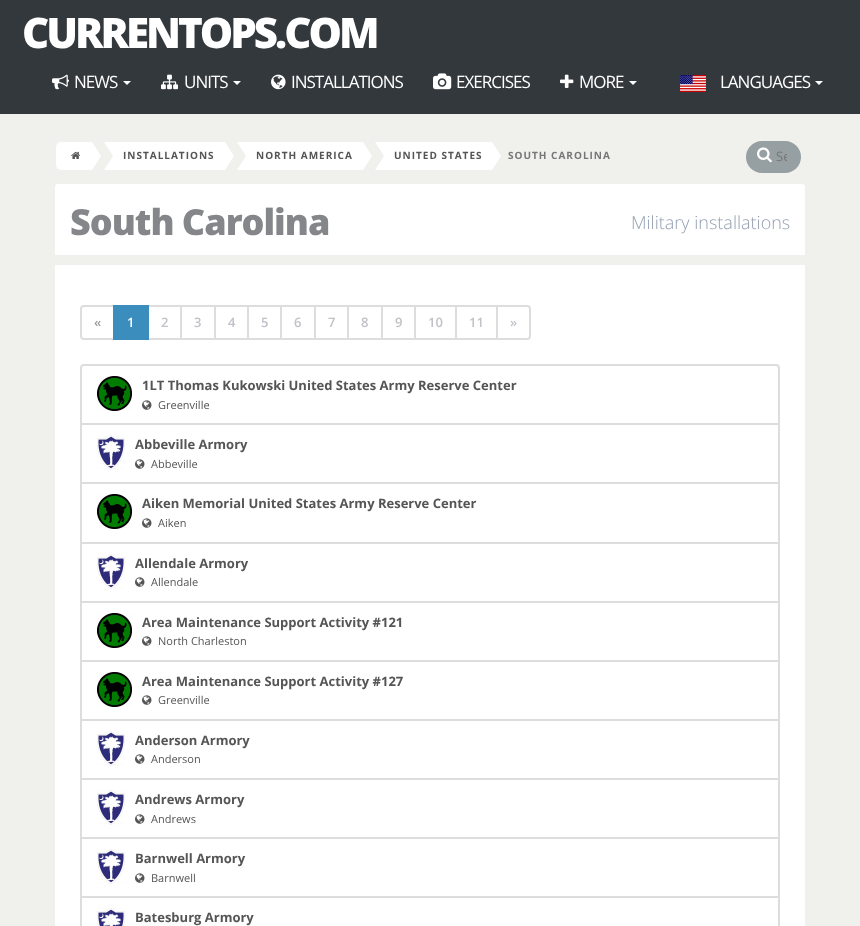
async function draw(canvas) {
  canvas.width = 860
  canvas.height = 926
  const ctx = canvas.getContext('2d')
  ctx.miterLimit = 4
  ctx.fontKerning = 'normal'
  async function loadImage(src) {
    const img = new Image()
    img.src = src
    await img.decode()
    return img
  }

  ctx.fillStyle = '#f0f0ed'
  ctx.fillRect(0, 0, 860, 926)
  ctx.fillStyle = '#33383d'
  ctx.fillRect(0, 0, 860, 114)
  ctx.letterSpacing = '-3px'
  ctx.font = '800 42px Open Sans'
  ctx.fillStyle = '#fff'
  ctx.fillText('CURRENTOPS.COM', 22, 48)
  ctx.drawImage(await loadImage('image0.png'), 52, 74, 17, 16)
  ctx.letterSpacing = '-1px'
  ctx.font = '17px Open Sans'
  ctx.fillText('NEWS', 74, 88)
  ctx.beginPath()
  ctx.moveTo(123, 81)
  ctx.lineTo(131, 81)
  ctx.lineTo(127, 85)
  ctx.closePath()
  ctx.fill()
  ctx.drawImage(await loadImage('image1.png'), 161, 74, 17, 16)
  ctx.fillText('UNITS', 184, 88)
  ctx.beginPath()
  ctx.moveTo(233, 81)
  ctx.lineTo(241, 81)
  ctx.lineTo(237, 85)
  ctx.closePath()
  ctx.fill()
  ctx.drawImage(await loadImage('image2.png'), 271, 74, 15, 16)
  ctx.fillText('INSTALLATIONS', 291, 88)
  ctx.drawImage(await loadImage('image3.png'), 433, 73, 19, 17)
  ctx.fillText('EXERCISES', 456, 88)
  ctx.drawImage(await loadImage('image4.png'), 560, 74, 14, 14)
  ctx.fillText('MORE', 579, 88)
  ctx.beginPath()
  ctx.moveTo(629, 81)
  ctx.lineTo(637, 81)
  ctx.lineTo(633, 85)
  ctx.closePath()
  ctx.fill()
  ctx.drawImage(await loadImage('image5.png'), 680, 75, 26, 17)
  ctx.fillText('LANGUAGES', 720, 88)
  ctx.beginPath()
  ctx.moveTo(815, 81)
  ctx.lineTo(823, 81)
  ctx.lineTo(819, 85)
  ctx.closePath()
  ctx.fill()
  ctx.beginPath()
  ctx.roundRect(56, 142, 36, 28, [5, 0, 0, 5])
  ctx.fill()
  ctx.drawImage(await loadImage('image6.png'), 71, 151, 10, 8)
  ctx.beginPath()
  ctx.moveTo(92, 170)
  ctx.lineTo(92, 142)
  ctx.lineTo(101, 156)
  ctx.closePath()
  ctx.fill()
  ctx.fillRect(113, 142, 112, 28)
  ctx.beginPath()
  ctx.moveTo(104, 142)
  ctx.lineTo(113, 142)
  ctx.lineTo(113, 156)
  ctx.closePath()
  ctx.moveTo(113, 170)
  ctx.lineTo(104, 170)
  ctx.lineTo(113, 156)
  ctx.closePath()
  ctx.fill()
  ctx.letterSpacing = '1px'
  ctx.font = 'bold 10px Open Sans'
  ctx.fillStyle = '#555'
  ctx.fillText('INSTALLATIONS', 123, 159)
  ctx.fillStyle = '#fff'
  ctx.beginPath()
  ctx.moveTo(225, 170)
  ctx.lineTo(225, 142)
  ctx.lineTo(234, 156)
  ctx.closePath()
  ctx.fill()
  ctx.fillRect(246, 142, 117, 28)
  ctx.beginPath()
  ctx.moveTo(237, 142)
  ctx.lineTo(246, 142)
  ctx.lineTo(246, 156)
  ctx.closePath()
  ctx.moveTo(246, 170)
  ctx.lineTo(237, 170)
  ctx.lineTo(246, 156)
  ctx.closePath()
  ctx.fill()
  ctx.fillStyle = '#555'
  ctx.fillText('NORTH AMERICA', 256, 159)
  ctx.fillStyle = '#fff'
  ctx.beginPath()
  ctx.moveTo(363, 170)
  ctx.lineTo(363, 142)
  ctx.lineTo(372, 156)
  ctx.closePath()
  ctx.fill()
  ctx.fillRect(384, 142, 108, 28)
  ctx.beginPath()
  ctx.moveTo(375, 142)
  ctx.lineTo(384, 142)
  ctx.lineTo(384, 156)
  ctx.closePath()
  ctx.moveTo(384, 170)
  ctx.lineTo(375, 170)
  ctx.lineTo(384, 156)
  ctx.closePath()
  ctx.fill()
  ctx.fillStyle = '#555'
  ctx.fillText('UNITED STATES', 394, 159)
  ctx.fillStyle = '#fff'
  ctx.beginPath()
  ctx.moveTo(492, 170)
  ctx.lineTo(492, 142)
  ctx.lineTo(501, 156)
  ctx.closePath()
  ctx.fill()
  ctx.fillStyle = '#777'
  ctx.fillText('SOUTH CAROLINA', 508, 159)
  ctx.fillStyle = '#969fa1'
  ctx.beginPath()
  ctx.roundRect(746, 141, 55, 32, 16)
  ctx.fill()
  ctx.drawImage(await loadImage('image7.png'), 757, 147, 15, 16)
  ctx.save()
  ctx.beginPath()
  ctx.rect(776, 147, 11, 18)
  ctx.clip()
  ctx.letterSpacing = '0px'
  ctx.font = '13px Open Sans'
  ctx.fillStyle = '#777'
  ctx.fillText('Se', 776, 161)
  ctx.restore()
  ctx.fillStyle = '#fff'
  ctx.beginPath()
  ctx.roundRect(55, 184, 750, 742, [3, 3, 0, 0])
  ctx.fill()
  ctx.fillStyle = '#f0f0ed'
  ctx.fillRect(55, 255, 750, 10)
  ctx.letterSpacing = '-1px'
  ctx.font = '800 36px Open Sans'
  ctx.fillStyle = '#858689'
  ctx.fillText('South Carolina', 70, 235)
  ctx.letterSpacing = '0px'
  ctx.font = '300 18px Open Sans'
  ctx.fillStyle = '#949fb2'
  ctx.fillText('Military installations', 631, 229)
  ctx.beginPath()
  ctx.roundRect(81, 306, 33, 33, [3, 0, 0, 3])
  ctx.strokeStyle = '#ddd'
  ctx.lineWidth = 2
  ctx.stroke()
  ctx.font = '600 13px Open Sans'
  ctx.fillStyle = '#999'
  ctx.fillText('«', 94, 327)
  ctx.strokeRect(148, 306, 33, 33)
  ctx.fillStyle = '#3b8dbd'
  ctx.fillRect(113, 305, 36, 35)
  ctx.fillStyle = '#fff'
  ctx.fillText('1', 127, 327)
  ctx.fillStyle = '#c0c2c7'
  ctx.fillText('2', 161, 327)
  ctx.strokeRect(181, 306, 34, 33)
  ctx.fillText('3', 194, 327)
  ctx.strokeRect(215, 306, 33, 33)
  ctx.fillText('4', 228, 327)
  ctx.strokeRect(248, 306, 33, 33)
  ctx.fillText('5', 261, 327)
  ctx.strokeRect(281, 306, 34, 33)
  ctx.fillText('6', 294, 327)
  ctx.strokeRect(315, 306, 33, 33)
  ctx.fillText('7', 328, 327)
  ctx.strokeRect(348, 306, 34, 33)
  ctx.fillText('8', 361, 327)
  ctx.strokeRect(382, 306, 33, 33)
  ctx.fillText('9', 395, 327)
  ctx.strokeRect(415, 306, 41, 33)
  ctx.fillText('10', 428, 327)
  ctx.strokeRect(456, 306, 41, 33)
  ctx.fillText('11', 469, 327)
  ctx.fillStyle = '#fff'
  ctx.beginPath()
  ctx.roundRect(497, 306, 33, 33, [0, 3, 3, 0])
  ctx.fill()
  ctx.stroke()
  ctx.fillStyle = '#c0c2c7'
  ctx.fillText('»', 510, 327)
  ctx.beginPath()
  ctx.roundRect(81, 365, 698, 59, [3, 3, 0, 0])
  ctx.stroke()
  ctx.drawImage(await loadImage('image8.png'), 97, 376, 35, 35)
  ctx.font = 'bold 13px Open Sans'
  ctx.fillStyle = '#555'
  ctx.fillText('1LT Thomas Kukowski United States Army Reserve Center', 142, 390)
  ctx.drawImage(await loadImage('image9.png'), 142, 400, 10, 10)
  ctx.font = '11px Open Sans'
  ctx.fillText('Greenville', 158, 409)
  ctx.strokeRect(81, 424, 698, 59)
  ctx.drawImage(await loadImage('image10.png'), 97, 435, 28, 35)
  ctx.font = 'bold 13px Open Sans'
  ctx.fillText('Abbeville Armory', 135, 449)
  ctx.drawImage(await loadImage('image9.png'), 135, 459, 10, 10)
  ctx.font = '11px Open Sans'
  ctx.fillText('Abbeville', 151, 468)
  ctx.strokeRect(81, 483, 698, 60)
  ctx.drawImage(await loadImage('image8.png'), 97, 494, 35, 35)
  ctx.font = 'bold 13px Open Sans'
  ctx.fillText('Aiken Memorial United States Army Reserve Center', 142, 508)
  ctx.drawImage(await loadImage('image9.png'), 142, 518, 10, 10)
  ctx.font = '11px Open Sans'
  ctx.fillText('Aiken', 158, 527)
  ctx.strokeRect(81, 543, 698, 59)
  ctx.drawImage(await loadImage('image10.png'), 97, 554, 28, 35)
  ctx.font = 'bold 13px Open Sans'
  ctx.fillText('Allendale Armory', 135, 568)
  ctx.drawImage(await loadImage('image9.png'), 135, 577, 10, 10)
  ctx.font = '11px Open Sans'
  ctx.fillText('Allendale', 151, 586)
  ctx.strokeRect(81, 602, 698, 59)
  ctx.drawImage(await loadImage('image8.png'), 97, 613, 35, 35)
  ctx.font = 'bold 13px Open Sans'
  ctx.fillText('Area Maintenance Support Activity #121', 142, 627)
  ctx.drawImage(await loadImage('image9.png'), 142, 636, 10, 10)
  ctx.font = '11px Open Sans'
  ctx.fillText('North Charleston', 158, 645)
  ctx.strokeRect(81, 661, 698, 59)
  ctx.drawImage(await loadImage('image8.png'), 97, 672, 35, 35)
  ctx.font = 'bold 13px Open Sans'
  ctx.fillText('Area Maintenance Support Activity #127', 142, 686)
  ctx.drawImage(await loadImage('image9.png'), 142, 695, 10, 10)
  ctx.font = '11px Open Sans'
  ctx.fillText('Greenville', 158, 704)
  ctx.strokeRect(81, 720, 698, 59)
  ctx.drawImage(await loadImage('image10.png'), 97, 731, 28, 35)
  ctx.font = 'bold 13px Open Sans'
  ctx.fillText('Anderson Armory', 135, 745)
  ctx.drawImage(await loadImage('image9.png'), 135, 754, 10, 10)
  ctx.font = '11px Open Sans'
  ctx.fillText('Anderson', 151, 763)
  ctx.strokeRect(81, 779, 698, 59)
  ctx.drawImage(await loadImage('image10.png'), 97, 790, 28, 35)
  ctx.font = 'bold 13px Open Sans'
  ctx.fillText('Andrews Armory', 135, 804)
  ctx.drawImage(await loadImage('image9.png'), 135, 814, 10, 10)
  ctx.font = '11px Open Sans'
  ctx.fillText('Andrews', 151, 823)
  ctx.strokeRect(81, 838, 698, 59)
  ctx.drawImage(await loadImage('image10.png'), 97, 849, 28, 35)
  ctx.font = 'bold 13px Open Sans'
  ctx.fillText('Barnwell Armory', 135, 863)
  ctx.drawImage(await loadImage('image9.png'), 135, 873, 10, 10)
  ctx.font = '11px Open Sans'
  ctx.fillText('Barnwell', 151, 882)
  ctx.strokeRect(81, 897, 698, 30)
  ctx.drawImage(await loadImage('image11.png'), 97, 908, 28, 18)
  ctx.font = 'bold 13px Open Sans'
  ctx.fillText('Batesburg Armory', 135, 922)
}

draw(document.querySelector('canvas'))
